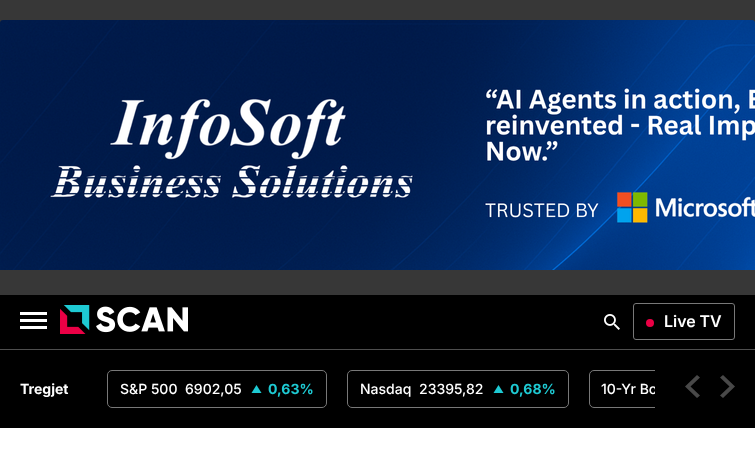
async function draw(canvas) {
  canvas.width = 755
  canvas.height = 449
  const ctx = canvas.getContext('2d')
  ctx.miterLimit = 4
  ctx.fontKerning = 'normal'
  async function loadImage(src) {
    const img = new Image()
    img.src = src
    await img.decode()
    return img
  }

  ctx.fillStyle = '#fff'
  ctx.fillRect(0, 0, 755, 449)
  ctx.fillStyle = '#373737'
  ctx.fillRect(0, 0, 755, 295)
  ctx.drawImage(await loadImage('image0.png'), 0, 20, 755, 250)
  ctx.fillStyle = '#000'
  ctx.fillRect(0, 295, 755, 133)
  ctx.fillStyle = '#4e4e4e'
  ctx.fillRect(0, 349, 755, 1)
  ctx.fillStyle = '#fff'
  ctx.fillRect(20, 319, 27, 3)
  ctx.fillRect(20, 312, 27, 3)
  ctx.fillRect(20, 326, 27, 3)
  ctx.drawImage(await loadImage('image1.png'), 60, 305, 128, 29)
  ctx.drawImage(await loadImage('image2.png'), 604, 314, 16, 16)
  ctx.beginPath()
  ctx.roundRect(633.5, 303.5, 101, 36, 2.5)
  ctx.strokeStyle = '#787878'
  ctx.stroke()
  ctx.fillStyle = '#eb0045'
  ctx.beginPath()
  ctx.arc(650, 323, 4, 0, 2 * Math.PI)
  ctx.fill()
  ctx.font = '600 16px Inter'
  ctx.fillStyle = '#fff'
  ctx.fillText('Live TV', 664, 327)
  ctx.font = 'bold 14px Inter'
  ctx.fillText('Tregjet', 20, 394)
  ctx.beginPath()
  ctx.roundRect(107.5, 370.5, 219, 37, 4.5)
  ctx.stroke()
  ctx.font = '500 14px Inter'
  ctx.fillText('S&P 500', 120, 394)
  ctx.fillText('6902,05', 185, 394)
  ctx.fillStyle = '#1ecad3'
  ctx.beginPath()
  ctx.moveTo(251.5, 393)
  ctx.lineTo(261.5, 393)
  ctx.lineTo(256.5, 385)
  ctx.closePath()
  ctx.fill()
  ctx.font = 'bold 14px Inter'
  ctx.fillText('0,63%', 268, 394)
  ctx.beginPath()
  ctx.roundRect(347.5, 370.5, 221, 37, 4.5)
  ctx.stroke()
  ctx.font = '500 14px Inter'
  ctx.fillStyle = '#fff'
  ctx.fillText('Nasdaq', 360, 394)
  ctx.fillText('23395,82', 419, 394)
  ctx.fillStyle = '#1ecad3'
  ctx.beginPath()
  ctx.moveTo(493.5, 393)
  ctx.lineTo(503.5, 393)
  ctx.lineTo(498.5, 385)
  ctx.closePath()
  ctx.fill()
  ctx.font = 'bold 14px Inter'
  ctx.fillText('0,68%', 510, 394)
  ctx.save()
  ctx.beginPath()
  ctx.rect(106, 370, 629, 38)
  ctx.clip()
  ctx.beginPath()
  ctx.roundRect(589.5, 370.5, 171, 37, 4.5)
  ctx.stroke()
  ctx.restore()
  ctx.font = '500 14px Inter'
  ctx.fillStyle = '#fff'
  ctx.fillText('10-Yr Bo', 601, 394)
  ctx.fillStyle = '#000'
  ctx.fillRect(655, 370, 80, 38)
  ctx.fillStyle = '#484848'
  ctx.beginPath()
  ctx.moveTo(700, 395.5)
  ctx.lineTo(690.5, 386.5)
  ctx.lineTo(700, 377.5)
  ctx.lineTo(697, 375)
  ctx.lineTo(685, 386.5)
  ctx.lineTo(697, 398)
  ctx.closePath()
  ctx.moveTo(720, 377.5)
  ctx.lineTo(729.5, 386.5)
  ctx.lineTo(720, 395.5)
  ctx.lineTo(723, 398)
  ctx.lineTo(735, 386.5)
  ctx.lineTo(723, 375)
  ctx.closePath()
  ctx.fill()
}

draw(document.querySelector('canvas'))
